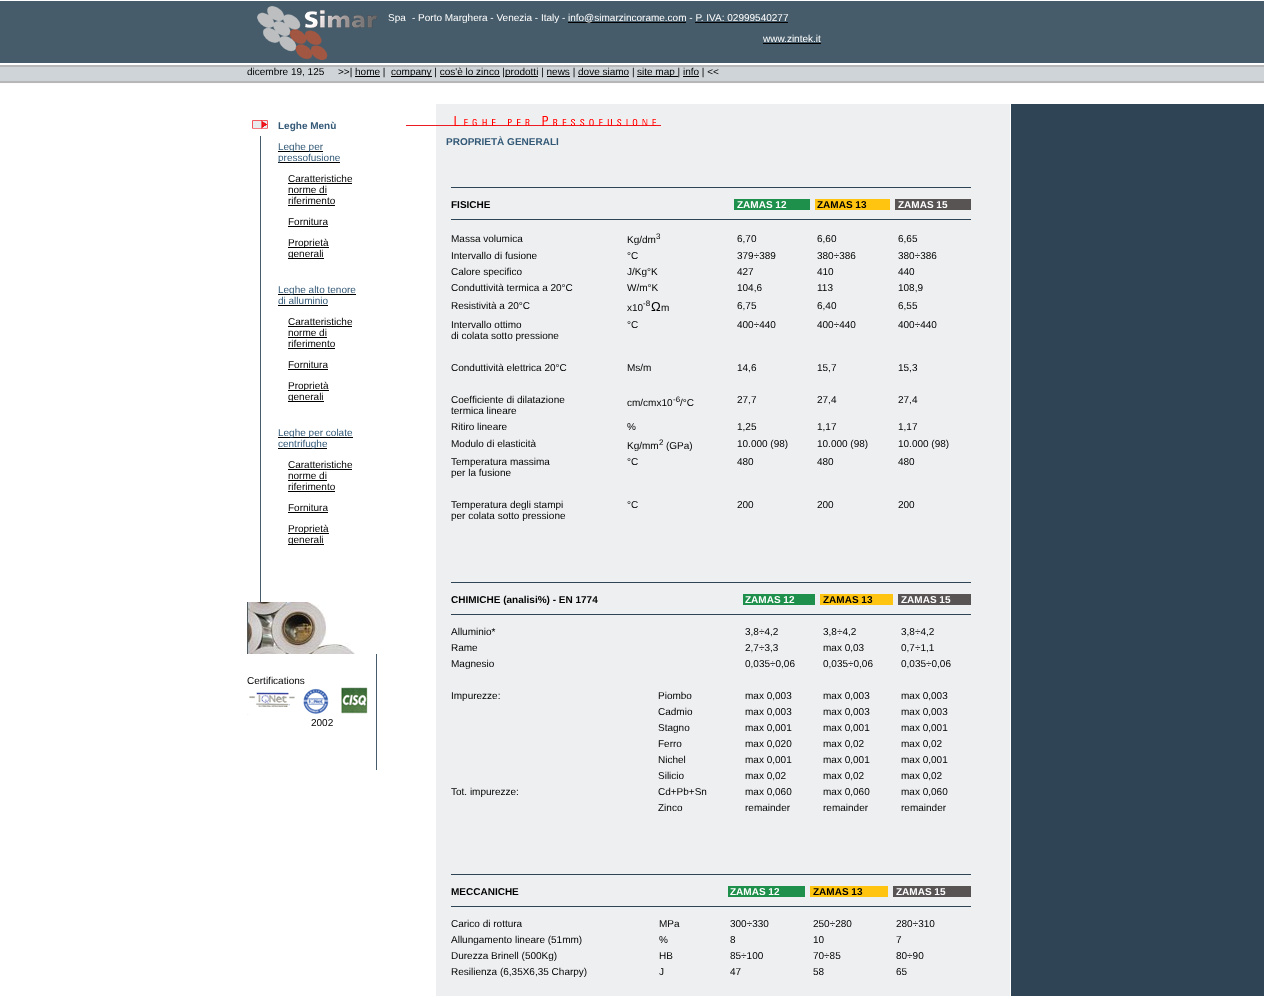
async function draw(canvas) {
  canvas.width = 1264
  canvas.height = 996
  const ctx = canvas.getContext('2d')
  ctx.miterLimit = 4
  ctx.fontKerning = 'normal'
  async function loadImage(src) {
    const img = new Image()
    img.src = src
    await img.decode()
    return img
  }

  ctx.fillStyle = '#fff'
  ctx.fillRect(0, 0, 1264, 996)
  ctx.drawImage(await loadImage('image0.png'), 0, 1, 247, 992)
  ctx.drawImage(await loadImage('image1.png'), 247, 1, 770, 992)
  ctx.drawImage(await loadImage('image2.png'), 257, 6, 120, 54)
  ctx.font = '10px Liberation Sans'
  ctx.fillText('Spa', 388, 21)
  ctx.fillText('- Porto Marghera - Venezia - Italy -', 412, 21)
  ctx.fillStyle = '#000'
  ctx.fillRect(568, 22, 118, 1)
  ctx.fillStyle = '#fff'
  ctx.fillText('info@simarzincorame.com - P. IVA: 02999540277', 568, 21)
  ctx.fillStyle = '#000'
  ctx.fillRect(695, 22, 93, 1)
  ctx.fillStyle = '#fff'
  ctx.fillText('www.zintek.it', 763, 42)
  ctx.fillStyle = '#000'
  ctx.fillRect(763, 43, 58, 1)
  ctx.fillText('dicembre 19, 125', 247, 75)
  ctx.fillText('>>| home |', 338, 75)
  ctx.fillRect(391, 76, 41, 1)
  ctx.fillText('company | cos\'è lo zinco |', 391, 75)
  ctx.fillRect(505, 76, 33, 1)
  ctx.fillText('prodotti | news | dove siamo |', 505, 75)
  ctx.fillRect(637, 76, 41, 1)
  ctx.fillText('site map | info | <<', 637, 75)
  ctx.fillRect(355, 76, 25, 1)
  ctx.fillRect(440, 76, 60, 1)
  ctx.fillRect(547, 76, 23, 1)
  ctx.fillRect(578, 76, 51, 1)
  ctx.fillRect(683, 76, 16, 1)
  ctx.drawImage(await loadImage('image3.png'), 436, 104, 581, 892)
  ctx.fillStyle = '#465c6a'
  ctx.fillRect(260, 136, 1, 466)
  ctx.drawImage(await loadImage('image4.png'), 252, 120, 16, 9)
  ctx.font = 'bold 10px Liberation Sans'
  ctx.fillStyle = '#335977'
  ctx.fillText('Leghe Menù', 278, 129)
  ctx.fillStyle = '#000'
  ctx.fillRect(278, 151, 45, 1)
  ctx.font = '10px Liberation Sans'
  ctx.fillStyle = '#335977'
  ctx.fillText('Leghe per', 278, 150)
  ctx.fillStyle = '#000'
  ctx.fillRect(278, 162, 62, 1)
  ctx.fillStyle = '#335977'
  ctx.fillText('pressofusione', 278, 161)
  ctx.fillStyle = '#000'
  ctx.fillText('Caratteristiche', 288, 182)
  ctx.fillRect(288, 183, 64, 1)
  ctx.fillText('norme di', 288, 193)
  ctx.fillRect(288, 194, 39, 1)
  ctx.fillText('riferimento', 288, 204)
  ctx.fillRect(288, 205, 47, 1)
  ctx.fillText('Fornitura', 288, 225)
  ctx.fillRect(288, 226, 40, 1)
  ctx.fillRect(288, 247, 41, 1)
  ctx.fillText('Proprietà', 288, 246)
  ctx.fillRect(288, 258, 36, 1)
  ctx.fillText('generali', 288, 257)
  ctx.fillRect(278, 294, 78, 1)
  ctx.fillStyle = '#335977'
  ctx.fillText('Leghe alto tenore', 278, 293)
  ctx.fillText('di alluminio', 278, 304)
  ctx.fillStyle = '#000'
  ctx.fillRect(278, 305, 50, 1)
  ctx.fillText('Caratteristiche', 288, 325)
  ctx.fillRect(288, 326, 64, 1)
  ctx.fillText('norme di', 288, 336)
  ctx.fillRect(288, 337, 39, 1)
  ctx.fillText('riferimento', 288, 347)
  ctx.fillRect(288, 348, 47, 1)
  ctx.fillText('Fornitura', 288, 368)
  ctx.fillRect(288, 369, 40, 1)
  ctx.fillRect(288, 390, 41, 1)
  ctx.fillText('Proprietà', 288, 389)
  ctx.fillRect(288, 401, 36, 1)
  ctx.fillText('generali', 288, 400)
  ctx.fillRect(278, 437, 75, 1)
  ctx.fillStyle = '#335977'
  ctx.fillText('Leghe per colate', 278, 436)
  ctx.fillStyle = '#000'
  ctx.fillRect(278, 448, 49, 1)
  ctx.fillStyle = '#335977'
  ctx.fillText('centrifughe', 278, 447)
  ctx.fillStyle = '#000'
  ctx.fillText('Caratteristiche', 288, 468)
  ctx.fillRect(288, 469, 64, 1)
  ctx.fillText('norme di', 288, 479)
  ctx.fillRect(288, 480, 39, 1)
  ctx.fillText('riferimento', 288, 490)
  ctx.fillRect(288, 491, 47, 1)
  ctx.fillText('Fornitura', 288, 511)
  ctx.fillRect(288, 512, 40, 1)
  ctx.fillRect(288, 533, 41, 1)
  ctx.fillText('Proprietà', 288, 532)
  ctx.fillRect(288, 544, 36, 1)
  ctx.fillText('generali', 288, 543)
  ctx.drawImage(await loadImage('image5.png'), 247, 602, 108, 52)
  ctx.fillStyle = '#465c6a'
  ctx.fillRect(376, 654, 1, 116)
  ctx.fillStyle = '#000'
  ctx.fillText('Certifications', 247, 684)
  ctx.drawImage(await loadImage('image6.png'), 247, 687, 121, 28)
  ctx.fillText('2002', 311, 726)
  ctx.drawImage(await loadImage('image7.png'), 406, 116, 255, 10)
  ctx.font = 'bold 10px Liberation Sans'
  ctx.fillStyle = '#335977'
  ctx.fillText('PROPRIETÀ GENERALI', 446, 145)
  ctx.fillStyle = '#2f4454'
  ctx.fillRect(451, 187, 520, 1)
  ctx.fillStyle = '#000'
  ctx.fillText('FISICHE', 451, 208)
  ctx.fillStyle = '#1e904c'
  ctx.fillRect(734, 199, 76, 11)
  ctx.fillStyle = '#fff'
  ctx.fillText('ZAMAS 12', 737, 208)
  ctx.fillStyle = '#ffc40f'
  ctx.fillRect(815, 199, 75, 11)
  ctx.fillStyle = '#000'
  ctx.fillText('ZAMAS 13', 817, 208)
  ctx.fillStyle = '#585454'
  ctx.fillRect(895, 199, 76, 11)
  ctx.fillStyle = '#fff'
  ctx.fillText('ZAMAS 15', 898, 208)
  ctx.fillStyle = '#2f4454'
  ctx.fillRect(451, 219, 520, 1)
  ctx.font = '10px Liberation Sans'
  ctx.fillStyle = '#000'
  ctx.fillText('Massa volumica', 451, 242)
  ctx.fillText('Kg/dm', 627, 243)
  ctx.font = '8px Liberation Sans'
  ctx.fillText('3', 656, 239)
  ctx.font = '10px Liberation Sans'
  ctx.fillText('6,70', 737, 242)
  ctx.fillText('6,60', 817, 242)
  ctx.fillText('6,65', 898, 242)
  ctx.fillText('Intervallo di fusione', 451, 259)
  ctx.fillText('°C', 627, 259)
  ctx.fillText('379÷389', 737, 259)
  ctx.fillText('380÷386', 817, 259)
  ctx.fillText('380÷386', 898, 259)
  ctx.fillText('Calore specifico', 451, 275)
  ctx.fillText('J/Kg°K', 627, 275)
  ctx.fillText('427', 737, 275)
  ctx.fillText('410', 817, 275)
  ctx.fillText('440', 898, 275)
  ctx.fillText('Conduttività termica a 20°C', 451, 291)
  ctx.fillText('W/m°K', 627, 291)
  ctx.fillText('104,6', 737, 291)
  ctx.fillText('113', 817, 291)
  ctx.fillText('108,9', 898, 291)
  ctx.fillText('Resistività a 20°C', 451, 309)
  ctx.fillText('x10', 627, 311)
  ctx.font = '8px Liberation Sans'
  ctx.fillText('-8', 643, 306)
  ctx.font = '13px Liberation Sans'
  ctx.fillText('Ω', 651, 311)
  ctx.font = '10px Liberation Sans'
  ctx.fillText('m', 661, 311)
  ctx.fillText('6,75', 737, 309)
  ctx.fillText('6,40', 817, 309)
  ctx.fillText('6,55', 898, 309)
  ctx.fillText('Intervallo ottimo', 451, 328)
  ctx.fillText('di colata sotto pressione', 451, 339)
  ctx.fillText('°C', 627, 328)
  ctx.fillText('400÷440', 737, 328)
  ctx.fillText('400÷440', 817, 328)
  ctx.fillText('400÷440', 898, 328)
  ctx.fillText('Conduttività elettrica 20°C', 451, 371)
  ctx.fillText('Ms/m', 627, 371)
  ctx.fillText('14,6', 737, 371)
  ctx.fillText('15,7', 817, 371)
  ctx.fillText('15,3', 898, 371)
  ctx.fillText('Coefficiente di dilatazione', 451, 403)
  ctx.fillText('termica lineare', 451, 414)
  ctx.fillText('cm/cmx10', 627, 406)
  ctx.font = '8px Liberation Sans'
  ctx.fillText('-6', 673, 402)
  ctx.font = '10px Liberation Sans'
  ctx.fillText('/°C', 680, 406)
  ctx.fillText('27,7', 737, 403)
  ctx.fillText('27,4', 817, 403)
  ctx.fillText('27,4', 898, 403)
  ctx.fillText('Ritiro lineare', 451, 430)
  ctx.fillText('%', 627, 430)
  ctx.fillText('1,25', 737, 430)
  ctx.fillText('1,17', 817, 430)
  ctx.fillText('1,17', 898, 430)
  ctx.fillText('Modulo di elasticità', 451, 447)
  ctx.fillText('Kg/mm', 627, 449)
  ctx.font = '8px Liberation Sans'
  ctx.fillText('2', 659, 445)
  ctx.font = '10px Liberation Sans'
  ctx.fillText('(GPa)', 666, 449)
  ctx.fillText('10.000 (98)', 737, 447)
  ctx.fillText('10.000 (98)', 817, 447)
  ctx.fillText('10.000 (98)', 898, 447)
  ctx.fillText('Temperatura massima', 451, 465)
  ctx.fillText('per la fusione', 451, 476)
  ctx.fillText('°C', 627, 465)
  ctx.fillText('480', 737, 465)
  ctx.fillText('480', 817, 465)
  ctx.fillText('480', 898, 465)
  ctx.fillText('Temperatura degli stampi', 451, 508)
  ctx.fillText('per colata sotto pressione', 451, 519)
  ctx.fillText('°C', 627, 508)
  ctx.fillText('200', 737, 508)
  ctx.fillText('200', 817, 508)
  ctx.fillText('200', 898, 508)
  ctx.fillStyle = '#2f4454'
  ctx.fillRect(451, 582, 520, 1)
  ctx.font = 'bold 10px Liberation Sans'
  ctx.fillStyle = '#000'
  ctx.fillText('CHIMICHE (analisi%) - EN 1774', 451, 603)
  ctx.fillStyle = '#1e904c'
  ctx.fillRect(743, 594, 72, 11)
  ctx.fillStyle = '#fff'
  ctx.fillText('ZAMAS 12', 745, 603)
  ctx.fillStyle = '#ffc40f'
  ctx.fillRect(820, 594, 73, 11)
  ctx.fillStyle = '#000'
  ctx.fillText('ZAMAS 13', 823, 603)
  ctx.fillStyle = '#585454'
  ctx.fillRect(898, 594, 73, 11)
  ctx.fillStyle = '#fff'
  ctx.fillText('ZAMAS 15', 901, 603)
  ctx.fillStyle = '#2f4454'
  ctx.fillRect(451, 614, 520, 1)
  ctx.font = '10px Liberation Sans'
  ctx.fillStyle = '#000'
  ctx.fillText('Alluminio*', 451, 635)
  ctx.fillText('3,8÷4,2', 745, 635)
  ctx.fillText('3,8÷4,2', 823, 635)
  ctx.fillText('3,8÷4,2', 901, 635)
  ctx.fillText('Rame', 451, 651)
  ctx.fillText('2,7÷3,3', 745, 651)
  ctx.fillText('max 0,03', 823, 651)
  ctx.fillText('0,7÷1,1', 901, 651)
  ctx.fillText('Magnesio', 451, 667)
  ctx.fillText('0,035÷0,06', 745, 667)
  ctx.fillText('0,035÷0,06', 823, 667)
  ctx.fillText('0,035÷0,06', 901, 667)
  ctx.fillText('Impurezze:', 451, 699)
  ctx.fillText('Piombo', 658, 699)
  ctx.fillText('max 0,003', 745, 699)
  ctx.fillText('max 0,003', 823, 699)
  ctx.fillText('max 0,003', 901, 699)
  ctx.fillText('Cadmio', 658, 715)
  ctx.fillText('max 0,003', 745, 715)
  ctx.fillText('max 0,003', 823, 715)
  ctx.fillText('max 0,003', 901, 715)
  ctx.fillText('Stagno', 658, 731)
  ctx.fillText('max 0,001', 745, 731)
  ctx.fillText('max 0,001', 823, 731)
  ctx.fillText('max 0,001', 901, 731)
  ctx.fillText('Ferro', 658, 747)
  ctx.fillText('max 0,020', 745, 747)
  ctx.fillText('max 0,02', 823, 747)
  ctx.fillText('max 0,02', 901, 747)
  ctx.fillText('Nichel', 658, 763)
  ctx.fillText('max 0,001', 745, 763)
  ctx.fillText('max 0,001', 823, 763)
  ctx.fillText('max 0,001', 901, 763)
  ctx.fillText('Silicio', 658, 779)
  ctx.fillText('max 0,02', 745, 779)
  ctx.fillText('max 0,02', 823, 779)
  ctx.fillText('max 0,02', 901, 779)
  ctx.fillText('Tot. impurezze:', 451, 795)
  ctx.fillText('Cd+Pb+Sn', 658, 795)
  ctx.fillText('max 0,060', 745, 795)
  ctx.fillText('max 0,060', 823, 795)
  ctx.fillText('max 0,060', 901, 795)
  ctx.fillText('Zinco', 658, 811)
  ctx.fillText('remainder', 745, 811)
  ctx.fillText('remainder', 823, 811)
  ctx.fillText('remainder', 901, 811)
  ctx.fillStyle = '#2f4454'
  ctx.fillRect(451, 874, 520, 1)
  ctx.font = 'bold 10px Liberation Sans'
  ctx.fillStyle = '#000'
  ctx.fillText('MECCANICHE', 451, 895)
  ctx.fillStyle = '#1e904c'
  ctx.fillRect(728, 886, 77, 11)
  ctx.fillStyle = '#fff'
  ctx.fillText('ZAMAS 12', 730, 895)
  ctx.fillStyle = '#ffc40f'
  ctx.fillRect(810, 886, 78, 11)
  ctx.fillStyle = '#000'
  ctx.fillText('ZAMAS 13', 813, 895)
  ctx.fillStyle = '#585454'
  ctx.fillRect(893, 886, 78, 11)
  ctx.fillStyle = '#fff'
  ctx.fillText('ZAMAS 15', 896, 895)
  ctx.fillStyle = '#2f4454'
  ctx.fillRect(451, 906, 520, 1)
  ctx.font = '10px Liberation Sans'
  ctx.fillStyle = '#000'
  ctx.fillText('Carico di rottura', 451, 927)
  ctx.fillText('MPa', 659, 927)
  ctx.fillText('300÷330', 730, 927)
  ctx.fillText('250÷280', 813, 927)
  ctx.fillText('280÷310', 896, 927)
  ctx.fillText('Allungamento lineare (51mm)', 451, 943)
  ctx.fillText('%', 659, 943)
  ctx.fillText('8', 730, 943)
  ctx.fillText('10', 813, 943)
  ctx.fillText('7', 896, 943)
  ctx.fillText('Durezza Brinell (500Kg)', 451, 959)
  ctx.fillText('HB', 659, 959)
  ctx.fillText('85÷100', 730, 959)
  ctx.fillText('70÷85', 813, 959)
  ctx.fillText('80÷90', 896, 959)
  ctx.fillText('Resilienza (6,35X6,35 Charpy)', 451, 975)
  ctx.fillText('J', 659, 975)
  ctx.fillText('47', 730, 975)
  ctx.fillText('58', 813, 975)
  ctx.fillText('65', 896, 975)
  ctx.drawImage(await loadImage('image8.png'), 1017, 1, 247, 995)
}

draw(document.querySelector('canvas'))
